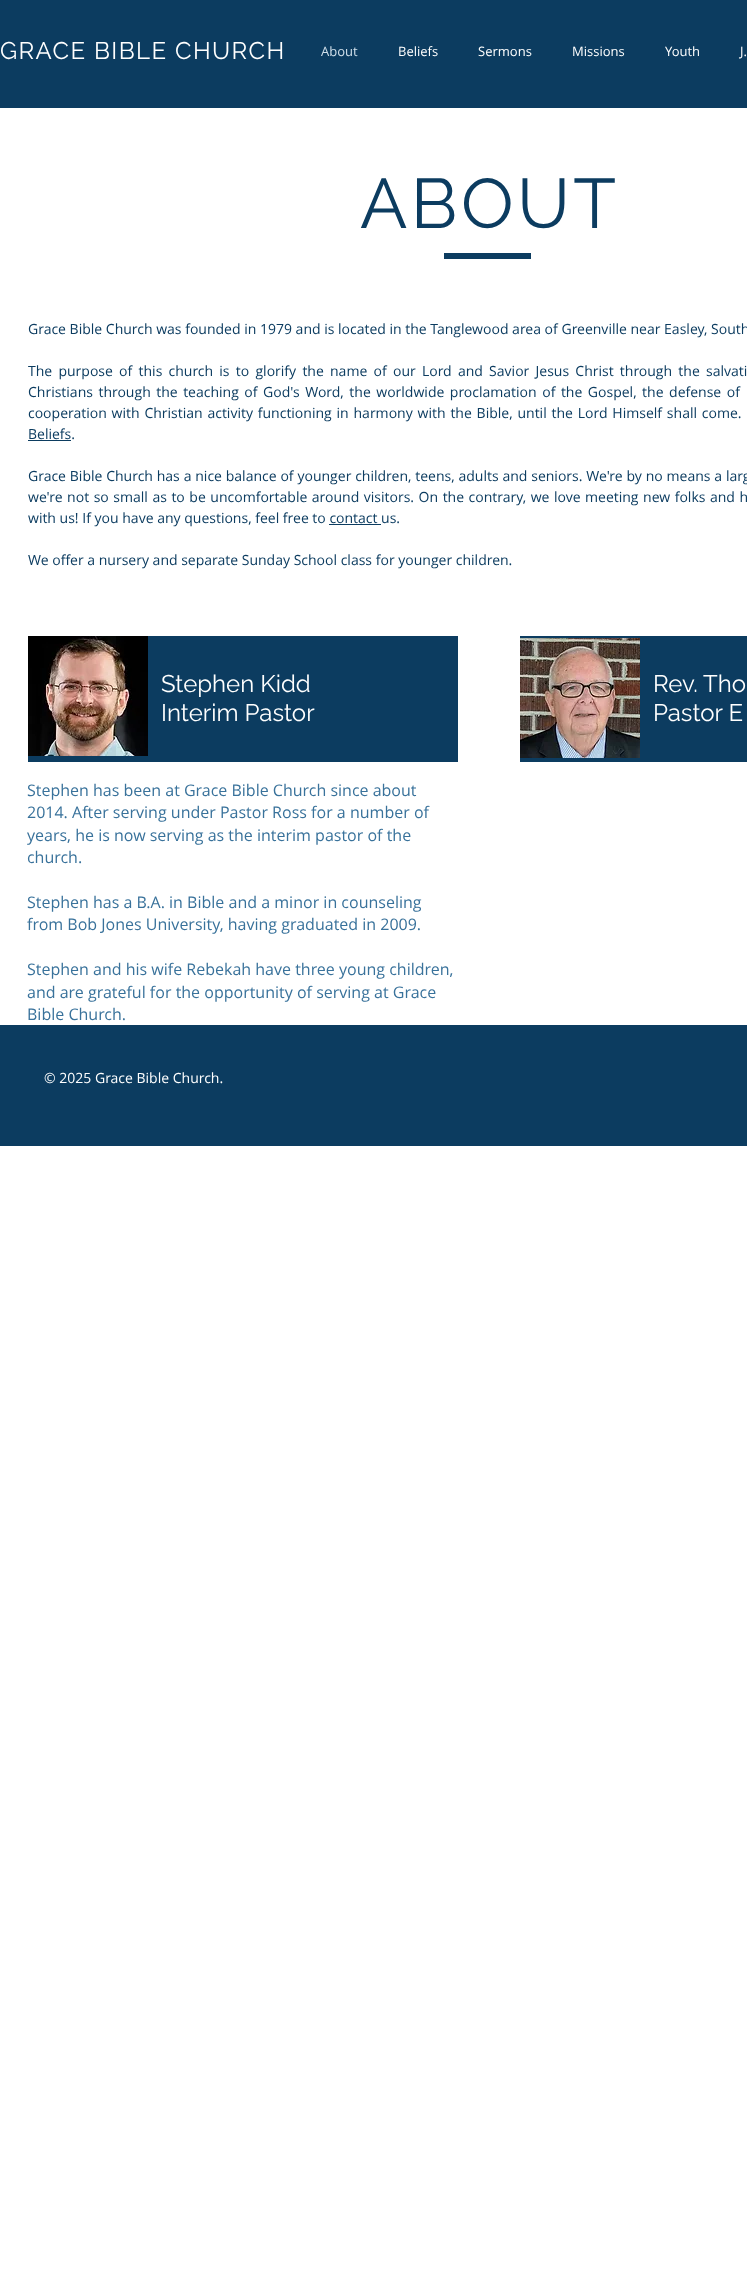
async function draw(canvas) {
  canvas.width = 747
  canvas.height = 2286
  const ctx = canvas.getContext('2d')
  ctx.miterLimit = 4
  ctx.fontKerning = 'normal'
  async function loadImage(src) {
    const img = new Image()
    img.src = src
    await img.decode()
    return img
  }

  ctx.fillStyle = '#fff'
  ctx.fillRect(0, 0, 747, 2286)
  ctx.fillStyle = '#0c3c60'
  ctx.fillRect(0, 0, 747, 108)
  ctx.letterSpacing = '1.4px'
  ctx.font = '24px Raleway'
  ctx.fillStyle = '#fff'
  ctx.fillText('GRACE BIBLE CHURCH', 0, 59)
  ctx.letterSpacing = '0px'
  ctx.font = '13px Open Sans'
  ctx.fillStyle = '#d1e0eb'
  ctx.fillText('About', 321, 56)
  ctx.fillStyle = '#fff'
  ctx.fillText('Beliefs', 398, 56)
  ctx.fillText('Sermons', 478, 56)
  ctx.fillText('Missions', 572, 56)
  ctx.fillText('Youth', 665, 56)
  ctx.fillText('J.', 740, 56)
  ctx.letterSpacing = '3.5px'
  ctx.font = '70px Raleway'
  ctx.fillStyle = '#0c3c60'
  ctx.fillText('ABOUT', 360, 228)
  ctx.fillRect(444, 253, 87, 6)
  ctx.letterSpacing = '0px'
  ctx.font = '14px Open Sans'
  ctx.fillText('Grace Bible Church was founded in 1979 and is located in the Tanglewood area of Greenville near Easley, South', 28, 334)
  ctx.wordSpacing = '2.6px'
  ctx.fillText('The purpose of this church is to glorify the name of our Lord and Savior Jesus Christ through the salvati', 28, 376)
  ctx.wordSpacing = '1.9px'
  ctx.fillText('Christians through the teaching of God\'s Word, the worldwide proclamation of the Gospel, the defense of', 28, 397)
  ctx.wordSpacing = '1.2px'
  ctx.fillText('cooperation with Christian activity functioning in harmony with the Bible, until the Lord Himself shall come.', 28, 418)
  ctx.wordSpacing = '0px'
  ctx.fillText('Beliefs.', 28, 439)
  ctx.fillRect(28, 440, 43, 1)
  ctx.wordSpacing = '0.2px'
  ctx.fillText('Grace Bible Church has a nice balance of younger children, teens, adults and seniors. We\'re by no means a larg', 28, 481)
  ctx.wordSpacing = '0.9px'
  ctx.fillText('we\'re not so small as to be uncomfortable around visitors. On the contrary, we love meeting new folks and h', 28, 502)
  ctx.wordSpacing = '0px'
  ctx.fillText('with us! If you have any questions, feel free to contact us.', 28, 523)
  ctx.fillRect(329, 524, 52, 1)
  ctx.fillText('We offer a nursery and separate Sunday School class for younger children.', 28, 565)
  ctx.fillRect(28, 636, 430, 126)
  ctx.drawImage(await loadImage('image0.png'), 28, 636, 120, 120)
  ctx.font = '24px Raleway'
  ctx.fillStyle = '#fff'
  ctx.fillText('Stephen Kidd', 161, 692)
  ctx.fillText('Interim Pastor', 161, 721)
  ctx.fillStyle = '#0c3c60'
  ctx.fillRect(520, 636, 227, 126)
  ctx.drawImage(await loadImage('image1.png'), 520, 638, 120, 120)
  ctx.fillStyle = '#fff'
  ctx.fillText('Rev. Tho', 653, 692)
  ctx.fillText('Pastor E', 653, 721)
  ctx.font = '16px Open Sans'
  ctx.fillStyle = '#39729b'
  ctx.fillText('Stephen has been at Grace Bible Church since about', 27, 796)
  ctx.fillText('2014. After serving under Pastor Ross for a number of', 27, 818)
  ctx.fillText('years, he is now serving as the interim pastor of the', 27, 841)
  ctx.fillText('church.', 27, 863)
  ctx.fillText('Stephen has a B.A. in Bible and a minor in counseling', 27, 908)
  ctx.fillText('from Bob Jones University, having graduated in 2009.', 27, 930)
  ctx.fillText('Stephen and his wife Rebekah have three young children,', 27, 975)
  ctx.fillText('and are grateful for the opportunity of serving at Grace', 27, 998)
  ctx.fillText('Bible Church.', 27, 1020)
  ctx.fillStyle = '#0c3c60'
  ctx.fillRect(0, 1025, 747, 121)
  ctx.font = '14px Open Sans'
  ctx.fillStyle = '#fff'
  ctx.fillText('© 2025 Grace Bible Church.', 44, 1083)
}

draw(document.querySelector('canvas'))
